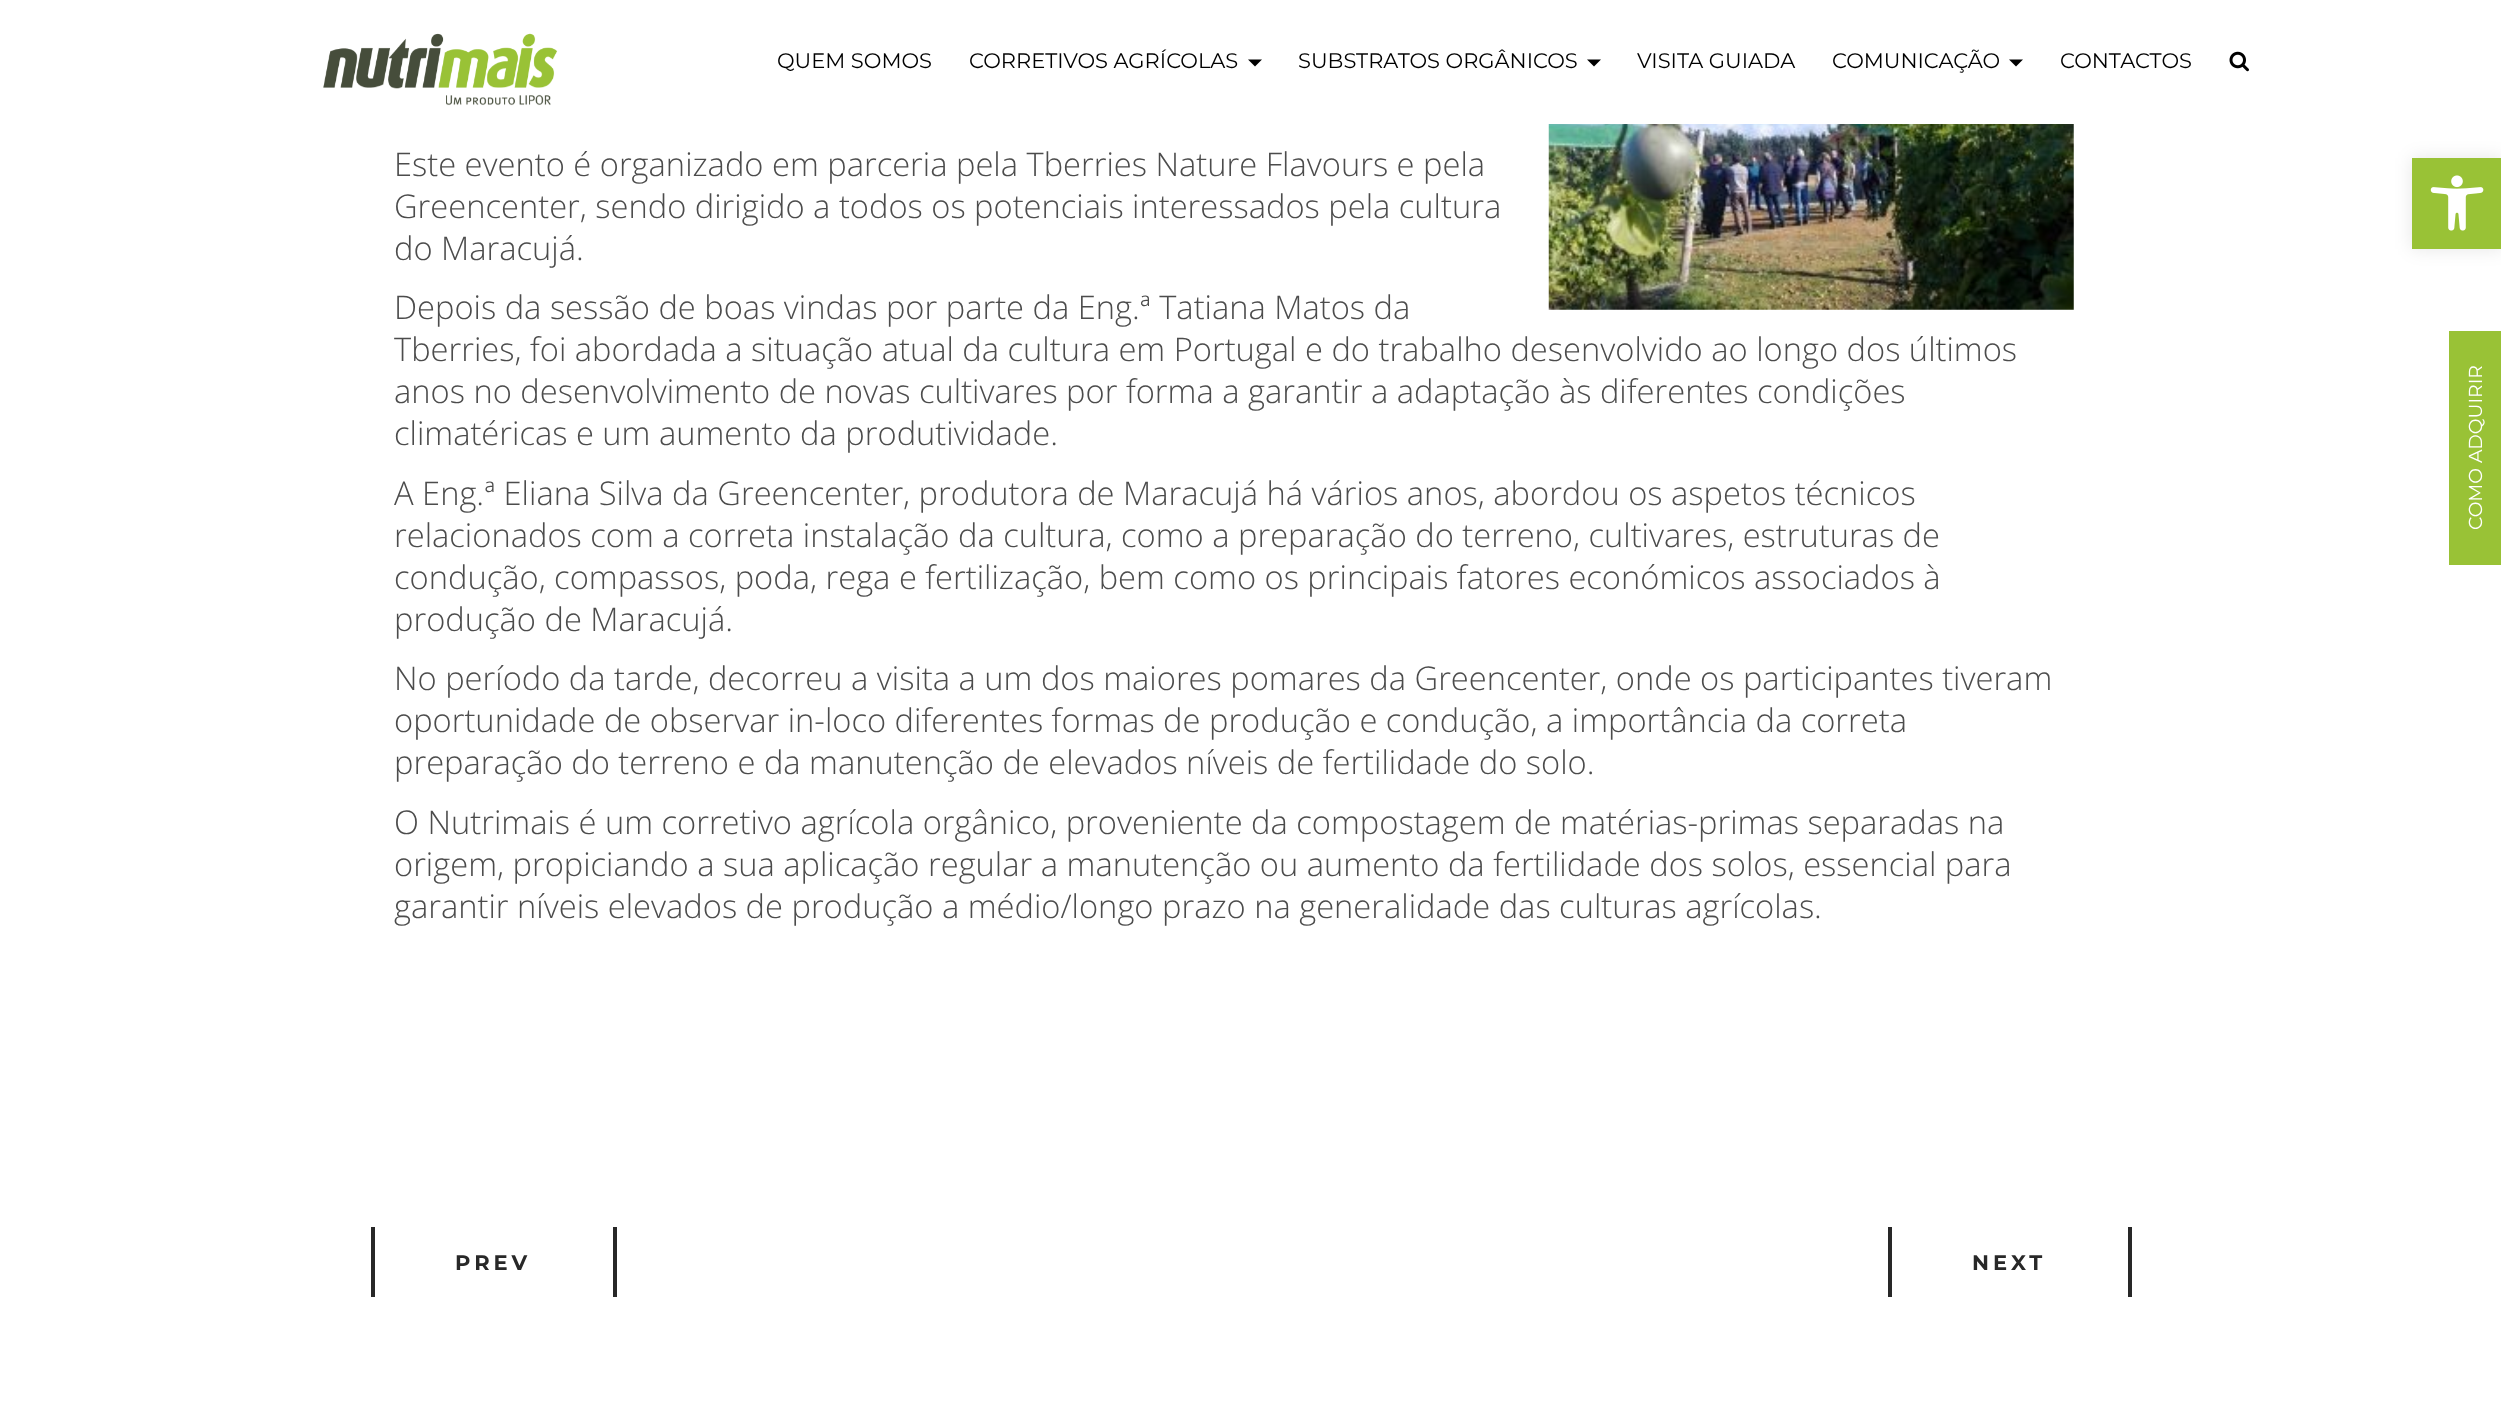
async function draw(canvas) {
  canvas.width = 2501
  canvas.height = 1415
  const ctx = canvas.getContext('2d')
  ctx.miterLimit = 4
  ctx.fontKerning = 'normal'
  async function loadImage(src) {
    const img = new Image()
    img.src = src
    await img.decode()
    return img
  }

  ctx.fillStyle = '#fff'
  ctx.fillRect(0, 0, 2501, 1415)
  ctx.drawImage(await loadImage('image0.png'), 323, 33, 235, 73)
  ctx.font = '21px Montserrat'
  ctx.fillStyle = '#000'
  ctx.fillText('QUEM SOMOS', 777, 68)
  ctx.fillText('CORRETIVOS AGRÍCOLAS', 969, 68)
  ctx.beginPath()
  ctx.moveTo(1248, 59.5)
  ctx.lineTo(1262, 59.5)
  ctx.lineTo(1255, 66.5)
  ctx.closePath()
  ctx.fill()
  ctx.fillText('SUBSTRATOS ORGÂNICOS', 1298, 68)
  ctx.beginPath()
  ctx.moveTo(1587, 59.5)
  ctx.lineTo(1601, 59.5)
  ctx.lineTo(1594, 66.5)
  ctx.closePath()
  ctx.fill()
  ctx.fillText('VISITA GUIADA', 1637, 68)
  ctx.fillText('COMUNICAÇÃO', 1832, 68)
  ctx.beginPath()
  ctx.moveTo(2009, 59.5)
  ctx.lineTo(2023, 59.5)
  ctx.lineTo(2016, 66.5)
  ctx.closePath()
  ctx.fill()
  ctx.fillText('CONTACTOS', 2060, 68)
  ctx.drawImage(await loadImage('image1.png'), 2229, 51, 20, 21)
  ctx.font = '300 32.67px Open Sans'
  ctx.fillStyle = '#4c4c4c'
  ctx.fillText('Este evento é organizado em parceria pela Tberries Nature Flavours e pela', 394, 176)
  ctx.fillText('Greencenter, sendo dirigido a todos os potenciais interessados pela cultura', 394, 218)
  ctx.fillText('do Maracujá.', 394, 260)
  ctx.drawImage(await loadImage('image2.png'), 1548, 124, 526, 186)
  ctx.fillText('Depois da sessão de boas vindas por parte da Eng.ª Tatiana Matos da', 394, 319)
  ctx.fillText('Tberries, foi abordada a situação atual da cultura em Portugal e do trabalho desenvolvido ao longo dos últimos', 394, 361)
  ctx.fillText('anos no desenvolvimento de novas cultivares por forma a garantir a adaptação às diferentes condições', 394, 403)
  ctx.fillText('climatéricas e um aumento da produtividade.', 394, 445)
  ctx.fillText('A Eng.ª Eliana Silva da Greencenter, produtora de Maracujá há vários anos, abordou os aspetos técnicos', 394, 505)
  ctx.fillText('relacionados com a correta instalação da cultura, como a preparação do terreno, cultivares, estruturas de', 394, 547)
  ctx.fillText('condução, compassos, poda, rega e fertilização, bem como os principais fatores económicos associados à', 394, 589)
  ctx.fillText('produção de Maracujá.', 394, 631)
  ctx.fillText('No período da tarde, decorreu a visita a um dos maiores pomares da Greencenter, onde os participantes tiveram', 394, 690)
  ctx.fillText('oportunidade de observar in-loco diferentes formas de produção e condução, a importância da correta', 394, 732)
  ctx.fillText('preparação do terreno e da manutenção de elevados níveis de fertilidade do solo.', 394, 774)
  ctx.fillText('O Nutrimais é um corretivo agrícola orgânico, proveniente da compostagem de matérias-primas separadas na', 394, 834)
  ctx.fillText('origem, propiciando a sua aplicação regular a manutenção ou aumento da fertilidade dos solos, essencial para', 394, 876)
  ctx.fillText('garantir níveis elevados de produção a médio/longo prazo na generalidade das culturas agrícolas.', 394, 918)
  ctx.fillStyle = '#282828'
  ctx.fillRect(371, 1227, 4, 70)
  ctx.letterSpacing = '4px'
  ctx.font = 'bold 21px Montserrat'
  ctx.fillText('PREV', 455, 1270)
  ctx.fillRect(613, 1227, 4, 70)
  ctx.fillRect(1888, 1227, 4, 70)
  ctx.fillText('NEXT', 1972, 1270)
  ctx.fillRect(2128, 1227, 4, 70)
  ctx.fillStyle = '#0000001a'
  ctx.filter = 'blur(9px)'
  ctx.beginPath()
  ctx.rect(2412, 158, 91, 91)
  ctx.fill()
  ctx.filter = 'none'
  ctx.fillStyle = '#99c236'
  ctx.fillRect(2412, 158, 89, 91)
  ctx.drawImage(await loadImage('image3.png'), 2430, 175, 54, 56)
  ctx.fillRect(2449, 331, 52, 234)
  ctx.letterSpacing = '0px'
  ctx.font = '18.75px Montserrat'
  ctx.fillStyle = '#fff'
  ctx.save()
  ctx.translate(2482, 530)
  ctx.rotate(-90 * Math.PI / 180)
  ctx.fillText('COMO ADQUIRIR', 0, 0)
  ctx.restore()
}

draw(document.querySelector('canvas'))
